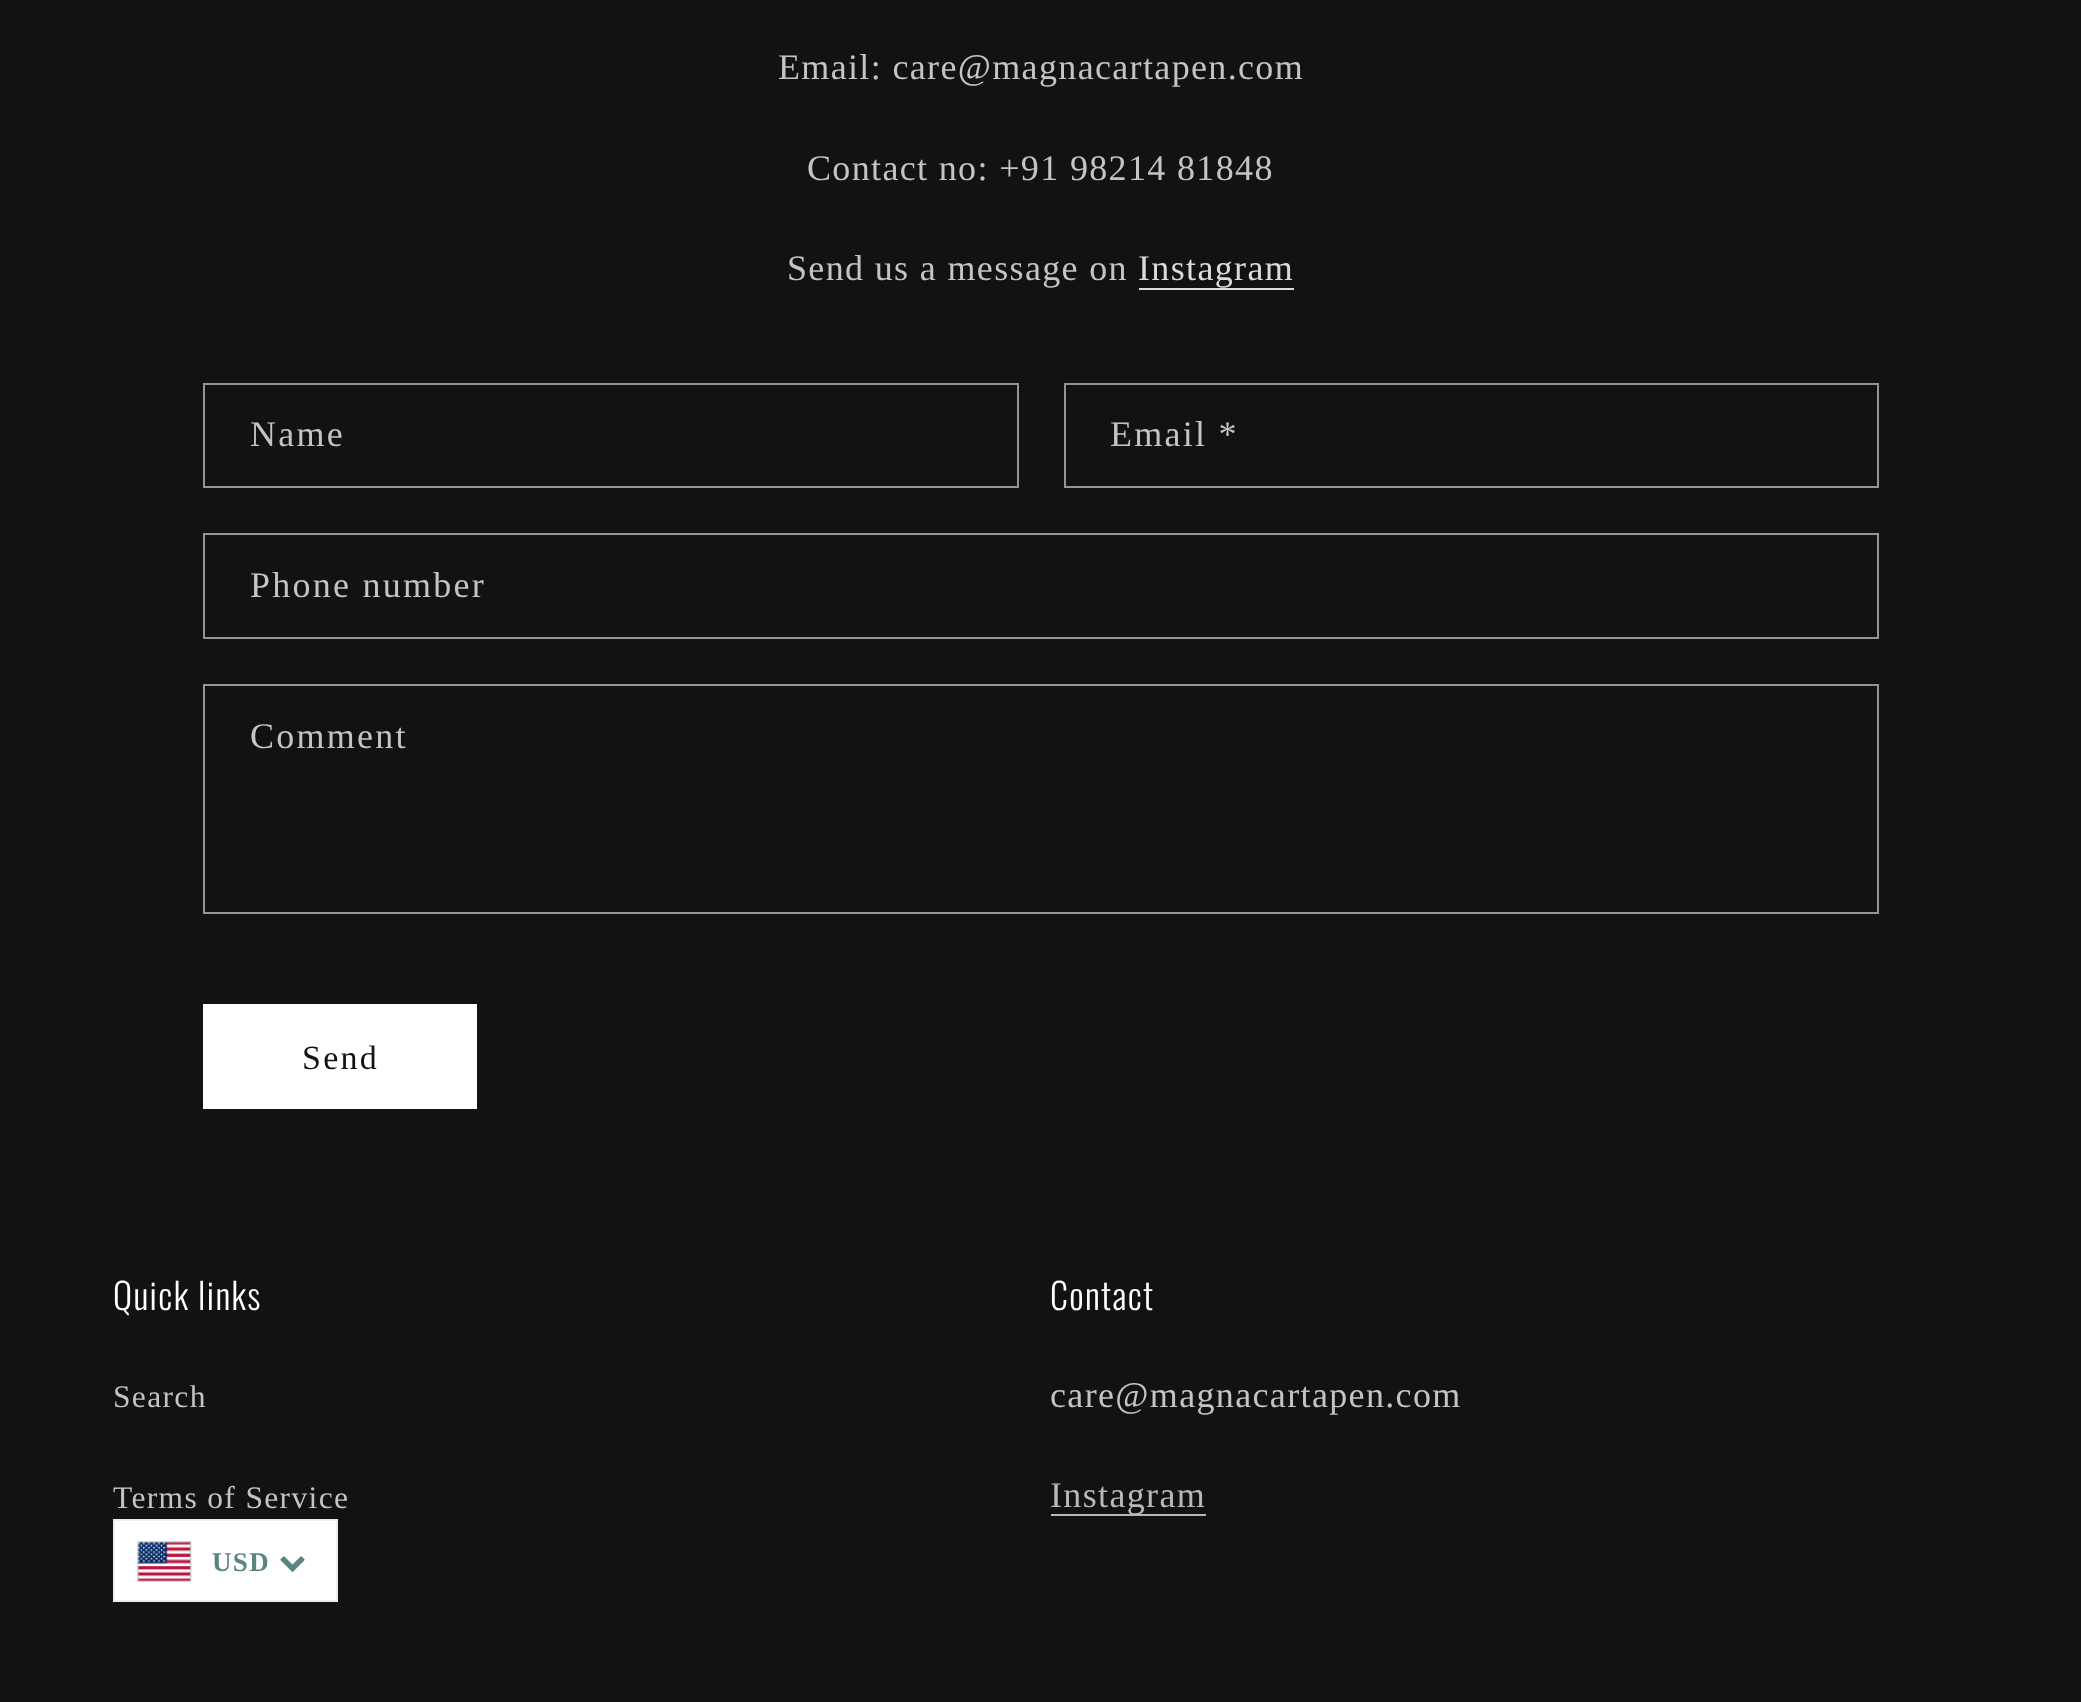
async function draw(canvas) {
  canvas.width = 2081
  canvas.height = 1702
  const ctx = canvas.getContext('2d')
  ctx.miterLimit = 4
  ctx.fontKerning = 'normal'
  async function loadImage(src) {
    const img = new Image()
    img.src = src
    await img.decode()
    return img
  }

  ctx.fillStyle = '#121212'
  ctx.fillRect(0, 0, 2081, 1702)
  ctx.letterSpacing = '1.35px'
  ctx.font = '36px Liberation Serif'
  ctx.fillStyle = '#c4c4c4'
  ctx.fillText('Email: care@magnacartapen.com', 778, 79)
  ctx.fillText('Contact no: +91 98214 81848', 807, 180)
  ctx.fillText('Send us a message on', 787, 280)
  ctx.fillStyle = '#dbdbdb'
  ctx.fillText('Instagram', 1138, 280)
  ctx.fillRect(1139, 288, 155, 2)
  ctx.strokeStyle = '#949494'
  ctx.lineWidth = 2
  ctx.strokeRect(204, 384, 814, 103)
  ctx.letterSpacing = '2.25px'
  ctx.fillStyle = '#c4c4c4'
  ctx.fillText('Name', 250, 446)
  ctx.strokeRect(1065, 384, 813, 103)
  ctx.fillText('Email *', 1110, 446)
  ctx.strokeRect(204, 534, 1674, 104)
  ctx.fillText('Phone number', 250, 597)
  ctx.strokeRect(204, 685, 1674, 228)
  ctx.fillText('Comment', 250, 748)
  ctx.fillStyle = '#fff'
  ctx.fillRect(203, 1004, 274, 105)
  ctx.font = '34px Liberation Serif'
  ctx.fillStyle = '#121212'
  ctx.fillText('Send', 302, 1069)
  ctx.letterSpacing = '1.35px'
  ctx.font = '300 36px Oswald'
  ctx.fillStyle = '#fff'
  ctx.fillText('Quick links', 113, 1310)
  ctx.font = '31.5px Liberation Serif'
  ctx.fillStyle = '#c4c4c4'
  ctx.fillText('Search', 113, 1407)
  ctx.fillText('Terms of Service', 113, 1508)
  ctx.font = '300 36px Oswald'
  ctx.fillStyle = '#fff'
  ctx.fillText('Contact', 1050, 1310)
  ctx.font = '36px Liberation Serif'
  ctx.fillStyle = '#c4c4c4'
  ctx.fillText('care@magnacartapen.com', 1050, 1407)
  ctx.fillStyle = '#b8b8b8'
  ctx.fillRect(1051, 1514, 155, 2)
  ctx.fillText('Instagram', 1050, 1507)
  ctx.fillStyle = '#fff'
  ctx.fillRect(115, 1521, 221, 79)
  ctx.drawImage(await loadImage('image0.png'), 137, 1541, 55, 41)
  ctx.strokeStyle = '#eee'
  ctx.strokeRect(114, 1520, 223, 81)
  ctx.font = 'bold 27px Liberation Serif'
  ctx.fillStyle = '#5b8583'
  ctx.fillText('USD', 212, 1571)
  ctx.drawImage(await loadImage('image1.png'), 280, 1556, 25, 16)
}

draw(document.querySelector('canvas'))
